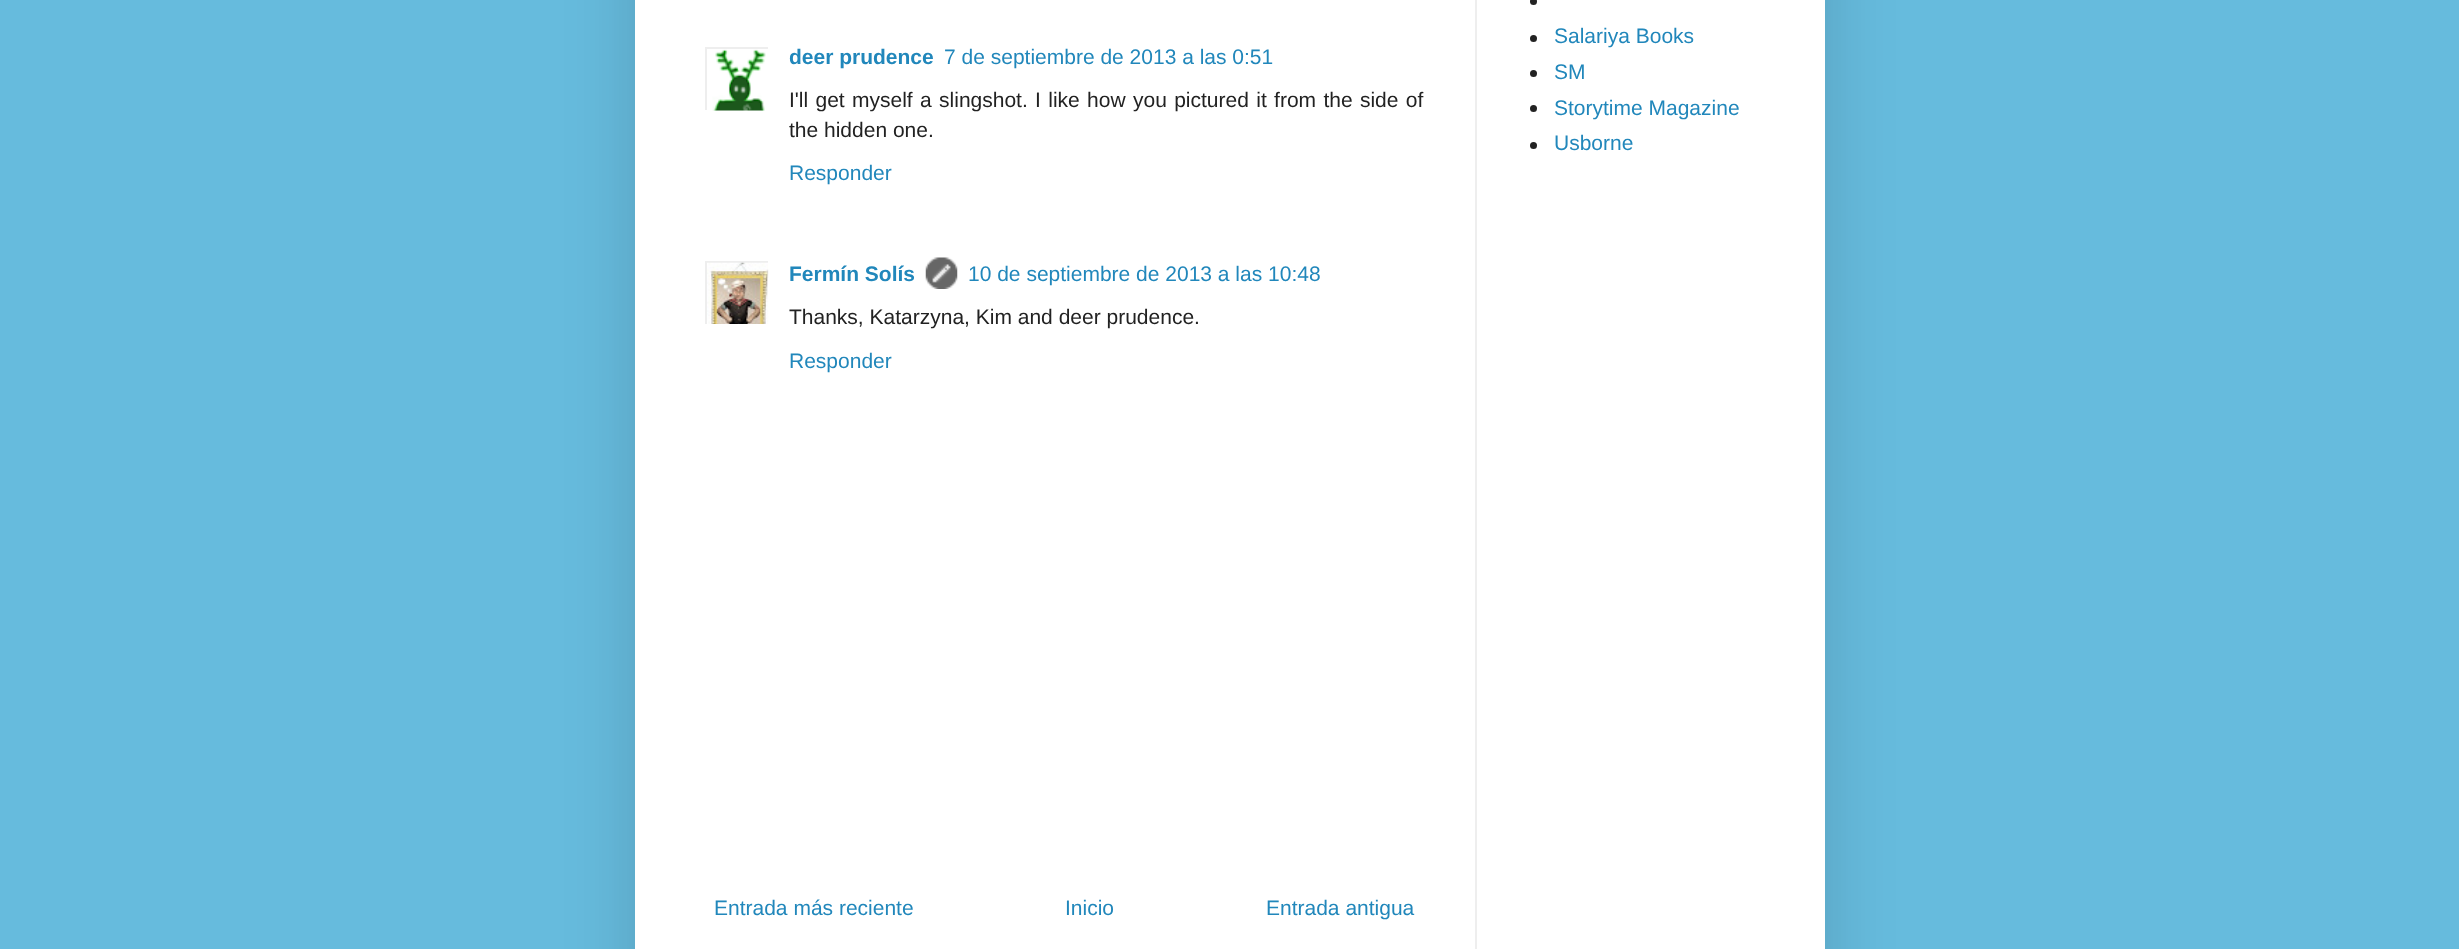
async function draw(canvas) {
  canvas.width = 2459
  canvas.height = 949
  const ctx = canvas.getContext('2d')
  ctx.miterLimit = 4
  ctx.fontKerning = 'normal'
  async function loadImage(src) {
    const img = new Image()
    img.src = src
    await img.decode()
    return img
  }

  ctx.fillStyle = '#6bd'
  ctx.fillRect(0, 0, 2459, 949)
  ctx.fillStyle = '#00000026'
  ctx.filter = 'blur(35px)'
  ctx.beginPath()
  ctx.rect(635, -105, 1190, 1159)
  ctx.fill()
  ctx.filter = 'none'
  ctx.fillStyle = '#fff'
  ctx.fillRect(635, 0, 1190, 949)
  ctx.fillStyle = '#eee'
  ctx.fillRect(1475, 0, 2, 949)
  ctx.save()
  ctx.beginPath()
  ctx.rect(705, 47, 63, 63)
  ctx.clip()
  ctx.strokeStyle = '#eee'
  ctx.lineWidth = 2
  ctx.strokeRect(706, 48, 65, 65)
  ctx.restore()
  ctx.drawImage(await loadImage('image0.png'), 712, 49, 54, 62)
  ctx.font = 'bold 21px Liberation Sans'
  ctx.fillStyle = '#2187bb'
  ctx.fillText('deer prudence', 789, 64)
  ctx.font = '21px Liberation Sans'
  ctx.fillText('7 de septiembre de 2013 a las 0:51', 944, 64)
  ctx.wordSpacing = '1.5px'
  ctx.fillStyle = '#222'
  ctx.fillText('I\'ll get myself a slingshot. I like how you pictured it from the side of', 789, 107)
  ctx.wordSpacing = '0px'
  ctx.fillText('the hidden one.', 789, 137)
  ctx.fillStyle = '#2187bb'
  ctx.fillText('Responder', 789, 180)
  ctx.save()
  ctx.beginPath()
  ctx.rect(705, 261, 63, 63)
  ctx.clip()
  ctx.strokeStyle = '#eee'
  ctx.lineWidth = 2
  ctx.strokeRect(706, 262, 65, 64)
  ctx.restore()
  ctx.drawImage(await loadImage('image1.png'), 707, 262, 62, 62)
  ctx.font = 'bold 21px Liberation Sans'
  ctx.fillText('Fermín Solís', 789, 281)
  ctx.drawImage(await loadImage('image2.png'), 925, 257, 33, 32)
  ctx.font = '21px Liberation Sans'
  ctx.fillText('10 de septiembre de 2013 a las 10:48', 968, 281)
  ctx.fillStyle = '#222'
  ctx.fillText('Thanks, Katarzyna, Kim and deer prudence.', 789, 324)
  ctx.fillStyle = '#2187bb'
  ctx.fillText('Responder', 789, 368)
  ctx.fillText('Entrada más reciente', 714, 915)
  ctx.fillText('Inicio', 1065, 915)
  ctx.fillText('Entrada antigua', 1266, 915)
  ctx.fillStyle = '#222'
  ctx.beginPath()
  ctx.arc(1533.5, 1.5, 3.5, 0, 2 * Math.PI)
  ctx.fill()
  ctx.beginPath()
  ctx.arc(1533.5, 38.5, 3.5, 0, 2 * Math.PI)
  ctx.fill()
  ctx.fillStyle = '#2187bb'
  ctx.fillText('Salariya Books', 1554, 43)
  ctx.fillStyle = '#222'
  ctx.beginPath()
  ctx.arc(1533.5, 73.5, 3.5, 0, 2 * Math.PI)
  ctx.fill()
  ctx.fillStyle = '#2187bb'
  ctx.fillText('SM', 1554, 79)
  ctx.fillStyle = '#222'
  ctx.beginPath()
  ctx.arc(1533.5, 108.5, 3.5, 0, 2 * Math.PI)
  ctx.fill()
  ctx.fillStyle = '#2187bb'
  ctx.fillText('Storytime Magazine', 1554, 115)
  ctx.fillStyle = '#222'
  ctx.beginPath()
  ctx.arc(1533.5, 145.5, 3.5, 0, 2 * Math.PI)
  ctx.fill()
  ctx.fillStyle = '#2187bb'
  ctx.fillText('Usborne', 1554, 150)
}

draw(document.querySelector('canvas'))
